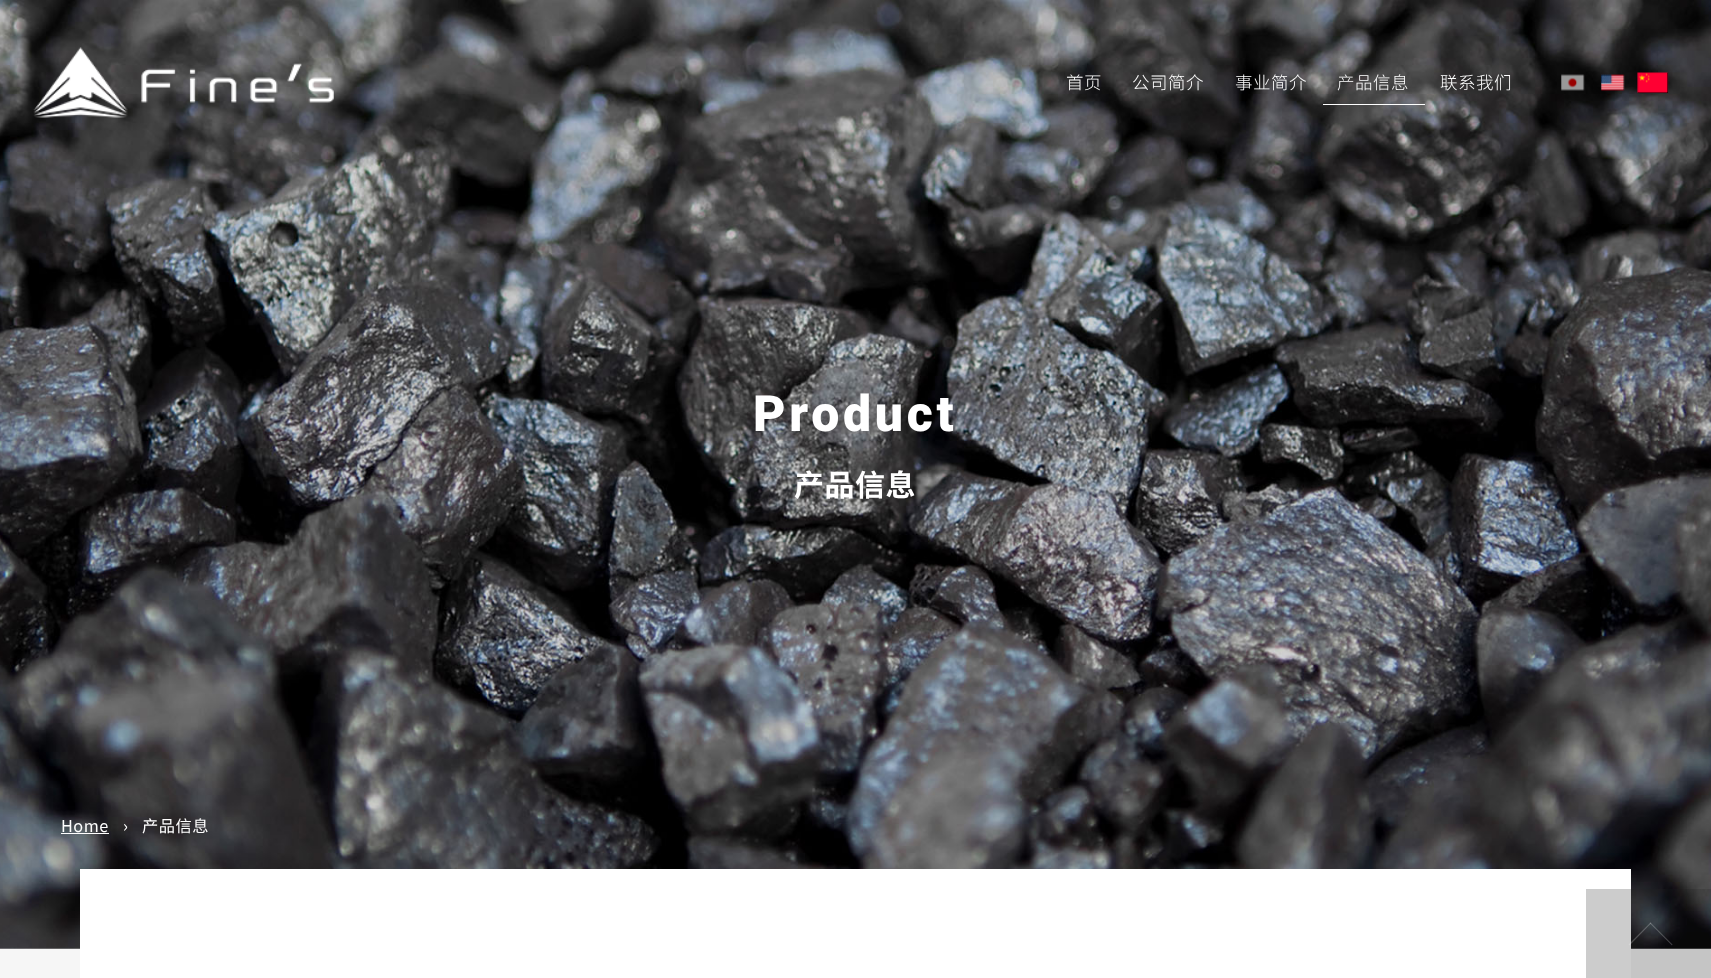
async function draw(canvas) {
  canvas.width = 1711
  canvas.height = 978
  const ctx = canvas.getContext('2d')
  ctx.miterLimit = 4
  ctx.fontKerning = 'normal'
  async function loadImage(src) {
    const img = new Image()
    img.src = src
    await img.decode()
    return img
  }

  ctx.fillStyle = '#f6f6f6'
  ctx.fillRect(0, 0, 1711, 978)
  ctx.drawImage(await loadImage('image4.png'), 0, 0, 1711, 949)
  ctx.drawImage(await loadImage('image0.png'), 33, 47, 301, 71)
  ctx.letterSpacing = '0.5px'
  ctx.font = '300 17.5px Noto Sans SC'
  ctx.fillStyle = '#fff'
  ctx.fillText('首页', 1066, 89)
  ctx.fillText('公司简介', 1132, 89)
  ctx.fillText('事业简介', 1235, 89)
  ctx.fillText('产品信息', 1337, 89)
  ctx.fillRect(1323, 104, 102, 1)
  ctx.fillText('联系我们', 1440, 89)
  ctx.fillStyle = '#000'
  ctx.fillRect(1561, 75, 23, 15)
  ctx.drawImage(await loadImage('image1.png'), 1561, 74, 24, 17)
  ctx.fillRect(1601, 75, 23, 15)
  ctx.drawImage(await loadImage('image2.png'), 1601, 74, 24, 17)
  ctx.fillRect(1638, 73, 30, 20)
  ctx.drawImage(await loadImage('image3.png'), 1637, 72, 32, 21)
  ctx.letterSpacing = '3.75px'
  ctx.font = '900 50px Roboto'
  ctx.fillStyle = '#fff'
  ctx.fillText('Product', 753, 431)
  ctx.letterSpacing = '0.5px'
  ctx.font = 'bold 30px Noto Sans SC'
  ctx.fillText('产品信息', 794, 496)
  ctx.font = '16.25px Noto Sans SC'
  ctx.fillText('Home', 61, 832)
  ctx.fillRect(61, 833, 48, 1)
  ctx.fillText('›', 123, 832)
  ctx.fillText('产品信息', 142, 832)
  ctx.fillRect(80, 869, 1551, 109)
  ctx.fillStyle = '#2222223b'
  ctx.fillRect(1586, 889, 125, 89)
  ctx.fillStyle = '#ffffff3b'
  ctx.beginPath()
  ctx.moveTo(1629.5, 945.5)
  ctx.lineTo(1628.5, 944.5)
  ctx.lineTo(1650.5, 922.5)
  ctx.lineTo(1651.5, 923)
  ctx.closePath()
  ctx.fill()
  ctx.beginPath()
  ctx.moveTo(1672, 945.5)
  ctx.lineTo(1649.5, 923)
  ctx.lineTo(1650.5, 922.5)
  ctx.lineTo(1672.5, 944.5)
  ctx.closePath()
  ctx.fill()
}

draw(document.querySelector('canvas'))
